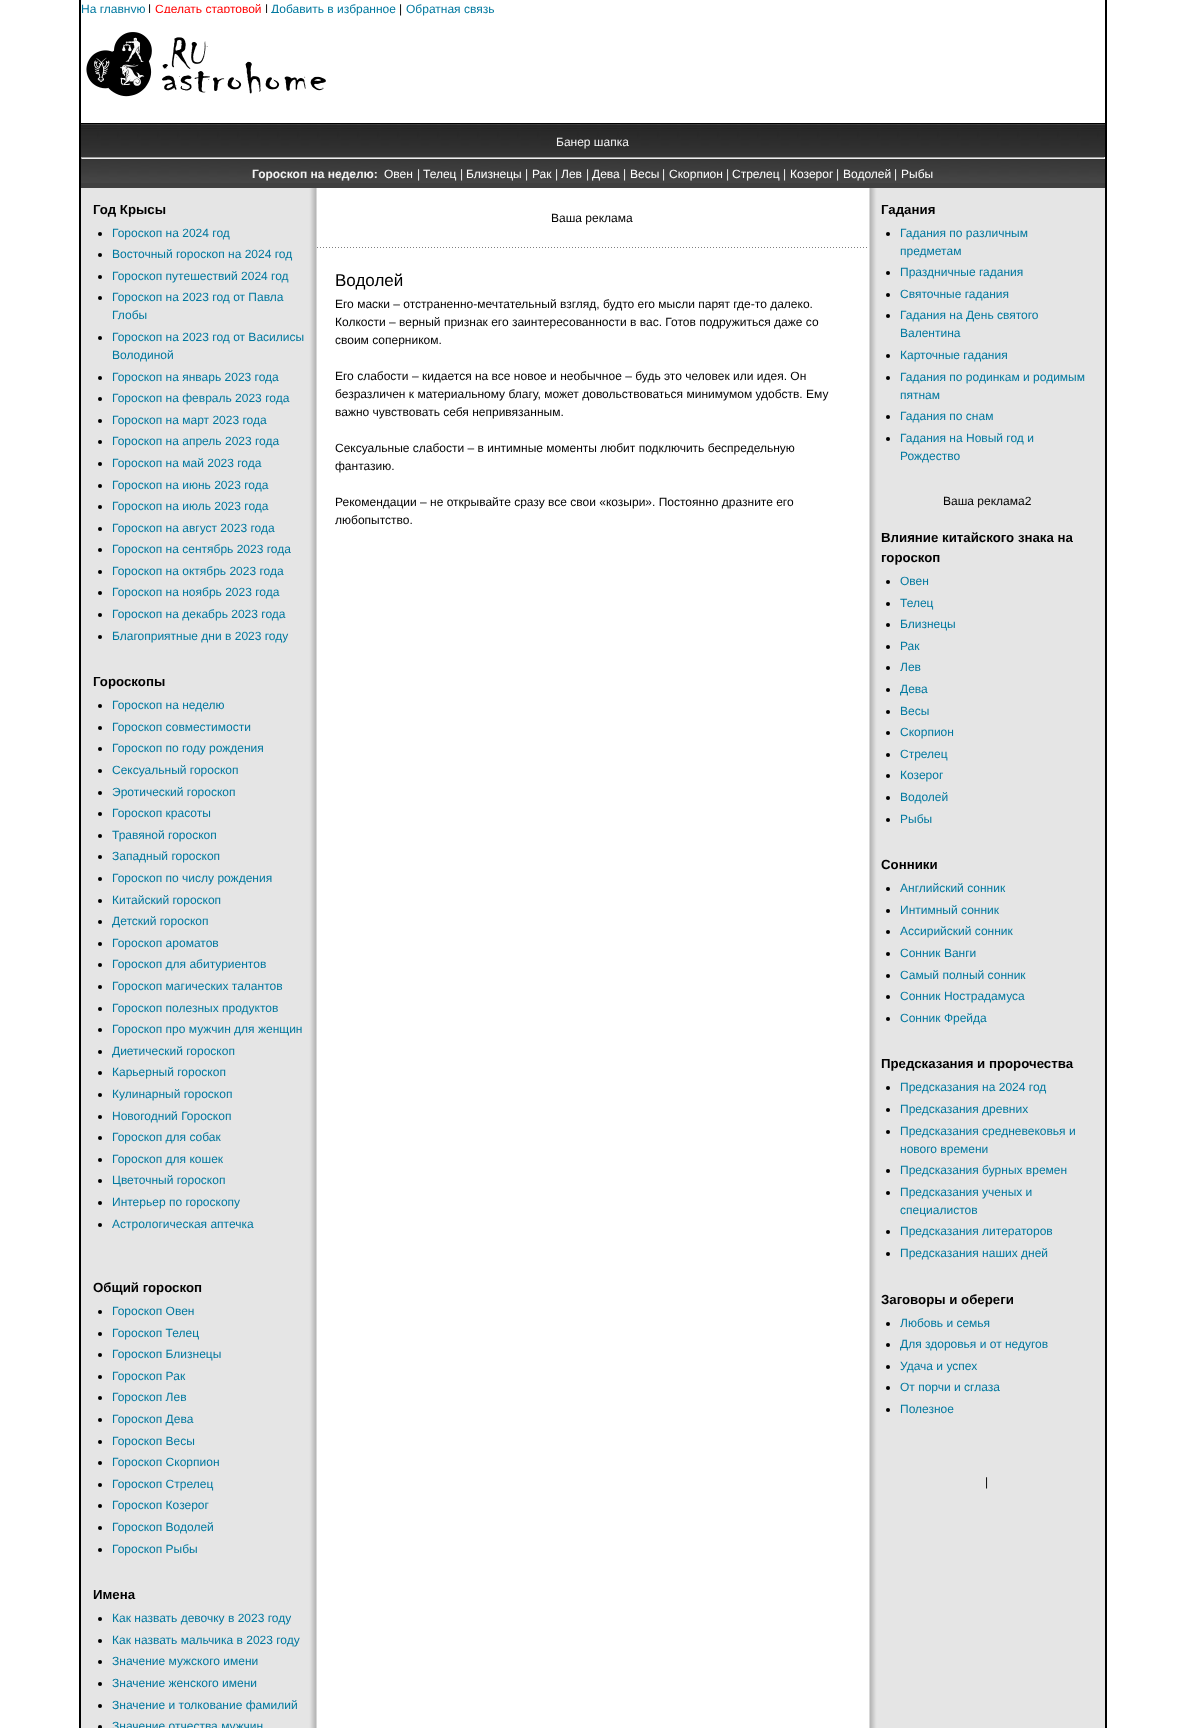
async function draw(canvas) {
  canvas.width = 1185
  canvas.height = 1728
  const ctx = canvas.getContext('2d')
  ctx.miterLimit = 4
  ctx.fontKerning = 'normal'
  async function loadImage(src) {
    const img = new Image()
    img.src = src
    await img.decode()
    return img
  }

  ctx.fillStyle = '#fff'
  ctx.fillRect(0, 0, 1185, 1728)
  ctx.fillStyle = '#000'
  ctx.fillRect(1105, 0, 2, 1728)
  ctx.fillRect(79, 0, 2, 1728)
  ctx.font = '12px Liberation Sans'
  ctx.fillStyle = '#00789f'
  ctx.fillText('На главную', 81, 13)
  ctx.fillStyle = '#000'
  ctx.fillText('|', 148, 13)
  ctx.fillStyle = '#f00'
  ctx.fillText('Сделать стартовой', 155, 13)
  ctx.fillStyle = '#000'
  ctx.fillText('|', 265, 13)
  ctx.fillStyle = '#00789f'
  ctx.fillText('Добавить в избранное', 271, 13)
  ctx.fillStyle = '#000'
  ctx.fillText('|', 399, 13)
  ctx.fillStyle = '#00789f'
  ctx.fillText('Обратная связь', 406, 13)
  ctx.drawImage(await loadImage('image0.png'), 86, 13, 240, 84)
  ctx.drawImage(await loadImage('image1.png'), 81, 123, 1024, 60)
  ctx.fillStyle = '#404040'
  ctx.fillRect(81, 183, 1024, 5)
  ctx.fillStyle = '#f2f2f2'
  ctx.fillText('Банер шапка', 556, 146)
  ctx.fillStyle = '#9f9f9f'
  ctx.fillRect(81, 157, 1024, 1)
  ctx.fillStyle = '#eee'
  ctx.fillRect(1104, 157, 1, 2)
  ctx.fillRect(81, 158, 1024, 1)
  ctx.fillStyle = '#9f9f9f'
  ctx.fillRect(81, 157, 1, 2)
  ctx.font = 'bold 12px Liberation Sans'
  ctx.fillStyle = '#f2f2f2'
  ctx.fillText('Гороскоп на неделю:', 252, 178)
  ctx.font = '12px Liberation Sans'
  ctx.fillStyle = '#fff'
  ctx.fillText('Овен', 384, 178)
  ctx.fillStyle = '#f2f2f2'
  ctx.fillText('|', 417, 178)
  ctx.fillStyle = '#fff'
  ctx.fillText('Телец', 423, 178)
  ctx.fillStyle = '#f2f2f2'
  ctx.fillText('|', 460, 178)
  ctx.fillStyle = '#fff'
  ctx.fillText('Близнецы', 466, 178)
  ctx.fillStyle = '#f2f2f2'
  ctx.fillText('|', 525, 178)
  ctx.fillStyle = '#fff'
  ctx.fillText('Рак', 532, 178)
  ctx.fillStyle = '#f2f2f2'
  ctx.fillText('|', 555, 178)
  ctx.fillStyle = '#fff'
  ctx.fillText('Лев', 561, 178)
  ctx.fillStyle = '#f2f2f2'
  ctx.fillText('|', 586, 178)
  ctx.fillStyle = '#fff'
  ctx.fillText('Дева', 592, 178)
  ctx.fillStyle = '#f2f2f2'
  ctx.fillText('|', 623, 178)
  ctx.fillStyle = '#fff'
  ctx.fillText('Весы', 630, 178)
  ctx.fillStyle = '#f2f2f2'
  ctx.fillText('|', 662, 178)
  ctx.fillStyle = '#fff'
  ctx.fillText('Скорпион', 669, 178)
  ctx.fillStyle = '#f2f2f2'
  ctx.fillText('|', 726, 178)
  ctx.fillStyle = '#fff'
  ctx.fillText('Стрелец', 732, 178)
  ctx.fillStyle = '#f2f2f2'
  ctx.fillText('|', 783, 178)
  ctx.fillStyle = '#fff'
  ctx.fillText('Козерог', 790, 178)
  ctx.fillStyle = '#f2f2f2'
  ctx.fillText('|', 836, 178)
  ctx.fillStyle = '#fff'
  ctx.fillText('Водолей', 843, 178)
  ctx.fillStyle = '#f2f2f2'
  ctx.fillText('|', 894, 178)
  ctx.fillStyle = '#fff'
  ctx.fillText('Рыбы', 901, 178)
  ctx.drawImage(await loadImage('image2.png'), 81, 188, 236, 1540)
  ctx.drawImage(await loadImage('image3.png'), 869, 188, 236, 1540)
  ctx.font = 'bold 13.25px Liberation Sans'
  ctx.fillStyle = '#000'
  ctx.fillText('Год Крысы', 93, 214)
  ctx.beginPath()
  ctx.arc(100, 234, 2, 0, 2 * Math.PI)
  ctx.fill()
  ctx.font = '12px Liberation Sans'
  ctx.fillStyle = '#00789f'
  ctx.fillText('Гороскоп на 2024 год', 112, 237)
  ctx.fillStyle = '#000'
  ctx.beginPath()
  ctx.arc(100, 255, 2, 0, 2 * Math.PI)
  ctx.fill()
  ctx.fillStyle = '#00789f'
  ctx.fillText('Восточный гороскоп на 2024 год', 112, 258)
  ctx.fillStyle = '#000'
  ctx.beginPath()
  ctx.arc(100, 277, 2, 0, 2 * Math.PI)
  ctx.fill()
  ctx.fillStyle = '#00789f'
  ctx.fillText('Гороскоп путешествий 2024 год', 112, 280)
  ctx.fillStyle = '#000'
  ctx.beginPath()
  ctx.arc(100, 298, 2, 0, 2 * Math.PI)
  ctx.fill()
  ctx.fillStyle = '#00789f'
  ctx.fillText('Гороскоп на 2023 год от Павла', 112, 301)
  ctx.fillText('Глобы', 112, 319)
  ctx.fillStyle = '#000'
  ctx.beginPath()
  ctx.arc(100, 338, 2, 0, 2 * Math.PI)
  ctx.fill()
  ctx.fillStyle = '#00789f'
  ctx.fillText('Гороскоп на 2023 год от Василисы', 112, 341)
  ctx.fillText('Володиной', 112, 359)
  ctx.fillStyle = '#000'
  ctx.beginPath()
  ctx.arc(100, 378, 2, 0, 2 * Math.PI)
  ctx.fill()
  ctx.fillStyle = '#00789f'
  ctx.fillText('Гороскоп на январь 2023 года', 112, 381)
  ctx.fillStyle = '#000'
  ctx.beginPath()
  ctx.arc(100, 399, 2, 0, 2 * Math.PI)
  ctx.fill()
  ctx.fillStyle = '#00789f'
  ctx.fillText('Гороскоп на февраль 2023 года', 112, 402)
  ctx.fillStyle = '#000'
  ctx.beginPath()
  ctx.arc(100, 421, 2, 0, 2 * Math.PI)
  ctx.fill()
  ctx.fillStyle = '#00789f'
  ctx.fillText('Гороскоп на март 2023 года', 112, 424)
  ctx.fillStyle = '#000'
  ctx.beginPath()
  ctx.arc(100, 442, 2, 0, 2 * Math.PI)
  ctx.fill()
  ctx.fillStyle = '#00789f'
  ctx.fillText('Гороскоп на апрель 2023 года', 112, 445)
  ctx.fillStyle = '#000'
  ctx.beginPath()
  ctx.arc(100, 464, 2, 0, 2 * Math.PI)
  ctx.fill()
  ctx.fillStyle = '#00789f'
  ctx.fillText('Гороскоп на май 2023 года', 112, 467)
  ctx.fillStyle = '#000'
  ctx.beginPath()
  ctx.arc(100, 486, 2, 0, 2 * Math.PI)
  ctx.fill()
  ctx.fillStyle = '#00789f'
  ctx.fillText('Гороскоп на июнь 2023 года', 112, 489)
  ctx.fillStyle = '#000'
  ctx.beginPath()
  ctx.arc(100, 507, 2, 0, 2 * Math.PI)
  ctx.fill()
  ctx.fillStyle = '#00789f'
  ctx.fillText('Гороскоп на июль 2023 года', 112, 510)
  ctx.fillStyle = '#000'
  ctx.beginPath()
  ctx.arc(100, 529, 2, 0, 2 * Math.PI)
  ctx.fill()
  ctx.fillStyle = '#00789f'
  ctx.fillText('Гороскоп на август 2023 года', 112, 532)
  ctx.fillStyle = '#000'
  ctx.beginPath()
  ctx.arc(100, 550, 2, 0, 2 * Math.PI)
  ctx.fill()
  ctx.fillStyle = '#00789f'
  ctx.fillText('Гороскоп на сентябрь 2023 года', 112, 553)
  ctx.fillStyle = '#000'
  ctx.beginPath()
  ctx.arc(100, 572, 2, 0, 2 * Math.PI)
  ctx.fill()
  ctx.fillStyle = '#00789f'
  ctx.fillText('Гороскоп на октябрь 2023 года', 112, 575)
  ctx.fillStyle = '#000'
  ctx.beginPath()
  ctx.arc(100, 593, 2, 0, 2 * Math.PI)
  ctx.fill()
  ctx.fillStyle = '#00789f'
  ctx.fillText('Гороскоп на ноябрь 2023 года', 112, 596)
  ctx.fillStyle = '#000'
  ctx.beginPath()
  ctx.arc(100, 615, 2, 0, 2 * Math.PI)
  ctx.fill()
  ctx.fillStyle = '#00789f'
  ctx.fillText('Гороскоп на декабрь 2023 года', 112, 618)
  ctx.fillStyle = '#000'
  ctx.beginPath()
  ctx.arc(100, 637, 2, 0, 2 * Math.PI)
  ctx.fill()
  ctx.fillStyle = '#00789f'
  ctx.fillText('Благоприятные дни в 2023 году', 112, 640)
  ctx.font = 'bold 13.25px Liberation Sans'
  ctx.fillStyle = '#000'
  ctx.fillText('Гороскопы', 93, 686)
  ctx.beginPath()
  ctx.arc(100, 706, 2, 0, 2 * Math.PI)
  ctx.fill()
  ctx.font = '12px Liberation Sans'
  ctx.fillStyle = '#00789f'
  ctx.fillText('Гороскоп на неделю', 112, 709)
  ctx.fillStyle = '#000'
  ctx.beginPath()
  ctx.arc(100, 728, 2, 0, 2 * Math.PI)
  ctx.fill()
  ctx.fillStyle = '#00789f'
  ctx.fillText('Гороскоп совместимости', 112, 731)
  ctx.fillStyle = '#000'
  ctx.beginPath()
  ctx.arc(100, 749, 2, 0, 2 * Math.PI)
  ctx.fill()
  ctx.fillStyle = '#00789f'
  ctx.fillText('Гороскоп по году рождения', 112, 752)
  ctx.fillStyle = '#000'
  ctx.beginPath()
  ctx.arc(100, 771, 2, 0, 2 * Math.PI)
  ctx.fill()
  ctx.fillStyle = '#00789f'
  ctx.fillText('Сексуальный гороскоп', 112, 774)
  ctx.fillStyle = '#000'
  ctx.beginPath()
  ctx.arc(100, 793, 2, 0, 2 * Math.PI)
  ctx.fill()
  ctx.fillStyle = '#00789f'
  ctx.fillText('Эротический гороскоп', 112, 796)
  ctx.fillStyle = '#000'
  ctx.beginPath()
  ctx.arc(100, 814, 2, 0, 2 * Math.PI)
  ctx.fill()
  ctx.fillStyle = '#00789f'
  ctx.fillText('Гороскоп красоты', 112, 817)
  ctx.fillStyle = '#000'
  ctx.beginPath()
  ctx.arc(100, 836, 2, 0, 2 * Math.PI)
  ctx.fill()
  ctx.fillStyle = '#00789f'
  ctx.fillText('Травяной гороскоп', 112, 839)
  ctx.fillStyle = '#000'
  ctx.beginPath()
  ctx.arc(100, 857, 2, 0, 2 * Math.PI)
  ctx.fill()
  ctx.fillStyle = '#00789f'
  ctx.fillText('Западный гороскоп', 112, 860)
  ctx.fillStyle = '#000'
  ctx.beginPath()
  ctx.arc(100, 879, 2, 0, 2 * Math.PI)
  ctx.fill()
  ctx.fillStyle = '#00789f'
  ctx.fillText('Гороскоп по числу рождения', 112, 882)
  ctx.fillStyle = '#000'
  ctx.beginPath()
  ctx.arc(100, 901, 2, 0, 2 * Math.PI)
  ctx.fill()
  ctx.fillStyle = '#00789f'
  ctx.fillText('Китайский гороскоп', 112, 904)
  ctx.fillStyle = '#000'
  ctx.beginPath()
  ctx.arc(100, 922, 2, 0, 2 * Math.PI)
  ctx.fill()
  ctx.fillStyle = '#00789f'
  ctx.fillText('Детский гороскоп', 112, 925)
  ctx.fillStyle = '#000'
  ctx.beginPath()
  ctx.arc(100, 944, 2, 0, 2 * Math.PI)
  ctx.fill()
  ctx.fillStyle = '#00789f'
  ctx.fillText('Гороскоп ароматов', 112, 947)
  ctx.fillStyle = '#000'
  ctx.beginPath()
  ctx.arc(100, 965, 2, 0, 2 * Math.PI)
  ctx.fill()
  ctx.fillStyle = '#00789f'
  ctx.fillText('Гороскоп для абитуриентов', 112, 968)
  ctx.fillStyle = '#000'
  ctx.beginPath()
  ctx.arc(100, 987, 2, 0, 2 * Math.PI)
  ctx.fill()
  ctx.fillStyle = '#00789f'
  ctx.fillText('Гороскоп магических талантов', 112, 990)
  ctx.fillStyle = '#000'
  ctx.beginPath()
  ctx.arc(100, 1009, 2, 0, 2 * Math.PI)
  ctx.fill()
  ctx.fillStyle = '#00789f'
  ctx.fillText('Гороскоп полезных продуктов', 112, 1012)
  ctx.fillStyle = '#000'
  ctx.beginPath()
  ctx.arc(100, 1030, 2, 0, 2 * Math.PI)
  ctx.fill()
  ctx.fillStyle = '#00789f'
  ctx.fillText('Гороскоп про мужчин для женщин', 112, 1033)
  ctx.fillStyle = '#000'
  ctx.beginPath()
  ctx.arc(100, 1052, 2, 0, 2 * Math.PI)
  ctx.fill()
  ctx.fillStyle = '#00789f'
  ctx.fillText('Диетический гороскоп', 112, 1055)
  ctx.fillStyle = '#000'
  ctx.beginPath()
  ctx.arc(100, 1073, 2, 0, 2 * Math.PI)
  ctx.fill()
  ctx.fillStyle = '#00789f'
  ctx.fillText('Карьерный гороскоп', 112, 1076)
  ctx.fillStyle = '#000'
  ctx.beginPath()
  ctx.arc(100, 1095, 2, 0, 2 * Math.PI)
  ctx.fill()
  ctx.fillStyle = '#00789f'
  ctx.fillText('Кулинарный гороскоп', 112, 1098)
  ctx.fillStyle = '#000'
  ctx.beginPath()
  ctx.arc(100, 1117, 2, 0, 2 * Math.PI)
  ctx.fill()
  ctx.fillStyle = '#00789f'
  ctx.fillText('Новогодний Гороскоп', 112, 1120)
  ctx.fillStyle = '#000'
  ctx.beginPath()
  ctx.arc(100, 1138, 2, 0, 2 * Math.PI)
  ctx.fill()
  ctx.fillStyle = '#00789f'
  ctx.fillText('Гороскоп для собак', 112, 1141)
  ctx.fillStyle = '#000'
  ctx.beginPath()
  ctx.arc(100, 1160, 2, 0, 2 * Math.PI)
  ctx.fill()
  ctx.fillStyle = '#00789f'
  ctx.fillText('Гороскоп для кошек', 112, 1163)
  ctx.fillStyle = '#000'
  ctx.beginPath()
  ctx.arc(100, 1181, 2, 0, 2 * Math.PI)
  ctx.fill()
  ctx.fillStyle = '#00789f'
  ctx.fillText('Цветочный гороскоп', 112, 1184)
  ctx.fillStyle = '#000'
  ctx.beginPath()
  ctx.arc(100, 1203, 2, 0, 2 * Math.PI)
  ctx.fill()
  ctx.fillStyle = '#00789f'
  ctx.fillText('Интерьер по гороскопу', 112, 1206)
  ctx.fillStyle = '#000'
  ctx.beginPath()
  ctx.arc(100, 1225, 2, 0, 2 * Math.PI)
  ctx.fill()
  ctx.fillStyle = '#00789f'
  ctx.fillText('Астрологическая аптечка', 112, 1228)
  ctx.font = 'bold 13.25px Liberation Sans'
  ctx.fillStyle = '#000'
  ctx.fillText('Общий гороскоп', 93, 1292)
  ctx.beginPath()
  ctx.arc(100, 1312, 2, 0, 2 * Math.PI)
  ctx.fill()
  ctx.font = '12px Liberation Sans'
  ctx.fillStyle = '#00789f'
  ctx.fillText('Гороскоп Овен', 112, 1315)
  ctx.fillStyle = '#000'
  ctx.beginPath()
  ctx.arc(100, 1334, 2, 0, 2 * Math.PI)
  ctx.fill()
  ctx.fillStyle = '#00789f'
  ctx.fillText('Гороскоп Телец', 112, 1337)
  ctx.fillStyle = '#000'
  ctx.beginPath()
  ctx.arc(100, 1355, 2, 0, 2 * Math.PI)
  ctx.fill()
  ctx.fillStyle = '#00789f'
  ctx.fillText('Гороскоп Близнецы', 112, 1358)
  ctx.fillStyle = '#000'
  ctx.beginPath()
  ctx.arc(100, 1377, 2, 0, 2 * Math.PI)
  ctx.fill()
  ctx.fillStyle = '#00789f'
  ctx.fillText('Гороскоп Рак', 112, 1380)
  ctx.fillStyle = '#000'
  ctx.beginPath()
  ctx.arc(100, 1398, 2, 0, 2 * Math.PI)
  ctx.fill()
  ctx.fillStyle = '#00789f'
  ctx.fillText('Гороскоп Лев', 112, 1401)
  ctx.fillStyle = '#000'
  ctx.beginPath()
  ctx.arc(100, 1420, 2, 0, 2 * Math.PI)
  ctx.fill()
  ctx.fillStyle = '#00789f'
  ctx.fillText('Гороскоп Дева', 112, 1423)
  ctx.fillStyle = '#000'
  ctx.beginPath()
  ctx.arc(100, 1442, 2, 0, 2 * Math.PI)
  ctx.fill()
  ctx.fillStyle = '#00789f'
  ctx.fillText('Гороскоп Весы', 112, 1445)
  ctx.fillStyle = '#000'
  ctx.beginPath()
  ctx.arc(100, 1463, 2, 0, 2 * Math.PI)
  ctx.fill()
  ctx.fillStyle = '#00789f'
  ctx.fillText('Гороскоп Скорпион', 112, 1466)
  ctx.fillStyle = '#000'
  ctx.beginPath()
  ctx.arc(100, 1485, 2, 0, 2 * Math.PI)
  ctx.fill()
  ctx.fillStyle = '#00789f'
  ctx.fillText('Гороскоп Стрелец', 112, 1488)
  ctx.fillStyle = '#000'
  ctx.beginPath()
  ctx.arc(100, 1506, 2, 0, 2 * Math.PI)
  ctx.fill()
  ctx.fillStyle = '#00789f'
  ctx.fillText('Гороскоп Козерог', 112, 1509)
  ctx.fillStyle = '#000'
  ctx.beginPath()
  ctx.arc(100, 1528, 2, 0, 2 * Math.PI)
  ctx.fill()
  ctx.fillStyle = '#00789f'
  ctx.fillText('Гороскоп Водолей', 112, 1531)
  ctx.fillStyle = '#000'
  ctx.beginPath()
  ctx.arc(100, 1550, 2, 0, 2 * Math.PI)
  ctx.fill()
  ctx.fillStyle = '#00789f'
  ctx.fillText('Гороскоп Рыбы', 112, 1553)
  ctx.font = 'bold 13.25px Liberation Sans'
  ctx.fillStyle = '#000'
  ctx.fillText('Имена', 93, 1599)
  ctx.beginPath()
  ctx.arc(100, 1619, 2, 0, 2 * Math.PI)
  ctx.fill()
  ctx.font = '12px Liberation Sans'
  ctx.fillStyle = '#00789f'
  ctx.fillText('Как назвать девочку в 2023 году', 112, 1622)
  ctx.fillStyle = '#000'
  ctx.beginPath()
  ctx.arc(100, 1641, 2, 0, 2 * Math.PI)
  ctx.fill()
  ctx.fillStyle = '#00789f'
  ctx.fillText('Как назвать мальчика в 2023 году', 112, 1644)
  ctx.fillStyle = '#000'
  ctx.beginPath()
  ctx.arc(100, 1662, 2, 0, 2 * Math.PI)
  ctx.fill()
  ctx.fillStyle = '#00789f'
  ctx.fillText('Значение мужского имени', 112, 1665)
  ctx.fillStyle = '#000'
  ctx.beginPath()
  ctx.arc(100, 1684, 2, 0, 2 * Math.PI)
  ctx.fill()
  ctx.fillStyle = '#00789f'
  ctx.fillText('Значение женского имени', 112, 1687)
  ctx.fillStyle = '#000'
  ctx.beginPath()
  ctx.arc(100, 1706, 2, 0, 2 * Math.PI)
  ctx.fill()
  ctx.fillStyle = '#00789f'
  ctx.fillText('Значение и толкование фамилий', 112, 1709)
  ctx.fillStyle = '#000'
  ctx.beginPath()
  ctx.arc(100, 1727, 2, 0, 2 * Math.PI)
  ctx.fill()
  ctx.fillStyle = '#00789f'
  ctx.fillText('Значение отчества мужчин', 112, 1730)
  ctx.drawImage(await loadImage('image4.png'), 317, 247, 550, 1)
  ctx.fillStyle = '#000'
  ctx.fillText('Ваша реклама', 551, 222)
  ctx.font = '17px Liberation Sans'
  ctx.fillText('Водолей', 335, 286)
  ctx.font = '12px Liberation Sans'
  ctx.fillText('Его маски – отстраненно-мечтательный взгляд, будто его мысли парят где-то далеко.', 335, 308)
  ctx.fillText('Колкости – верный признак его заинтересованности в вас. Готов подружиться даже со', 335, 326)
  ctx.fillText('своим соперником.', 335, 344)
  ctx.fillText('Его слабости – кидается на все новое и необычное – будь это человек или идея. Он', 335, 380)
  ctx.fillText('безразличен к материальному благу, может довольствоваться минимумом удобств. Ему', 335, 398)
  ctx.fillText('важно чувствовать себя непривязанным.', 335, 416)
  ctx.fillText('Сексуальные слабости – в интимные моменты любит подключить беспредельную', 335, 452)
  ctx.fillText('фантазию.', 335, 470)
  ctx.fillText('Рекомендации – не открывайте сразу все свои «козыри». Постоянно дразните его', 335, 506)
  ctx.fillText('любопытство.', 335, 524)
  ctx.font = 'bold 13.25px Liberation Sans'
  ctx.fillText('Гадания', 881, 214)
  ctx.beginPath()
  ctx.arc(888, 234, 2, 0, 2 * Math.PI)
  ctx.fill()
  ctx.font = '12px Liberation Sans'
  ctx.fillStyle = '#00789f'
  ctx.fillText('Гадания по различным', 900, 237)
  ctx.fillText('предметам', 900, 255)
  ctx.fillStyle = '#000'
  ctx.beginPath()
  ctx.arc(888, 273, 2, 0, 2 * Math.PI)
  ctx.fill()
  ctx.fillStyle = '#00789f'
  ctx.fillText('Праздничные гадания', 900, 276)
  ctx.fillStyle = '#000'
  ctx.beginPath()
  ctx.arc(888, 295, 2, 0, 2 * Math.PI)
  ctx.fill()
  ctx.fillStyle = '#00789f'
  ctx.fillText('Святочные гадания', 900, 298)
  ctx.fillStyle = '#000'
  ctx.beginPath()
  ctx.arc(888, 316, 2, 0, 2 * Math.PI)
  ctx.fill()
  ctx.fillStyle = '#00789f'
  ctx.fillText('Гадания на День святого', 900, 319)
  ctx.fillText('Валентина', 900, 337)
  ctx.fillStyle = '#000'
  ctx.beginPath()
  ctx.arc(888, 356, 2, 0, 2 * Math.PI)
  ctx.fill()
  ctx.fillStyle = '#00789f'
  ctx.fillText('Карточные гадания', 900, 359)
  ctx.fillStyle = '#000'
  ctx.beginPath()
  ctx.arc(888, 378, 2, 0, 2 * Math.PI)
  ctx.fill()
  ctx.fillStyle = '#00789f'
  ctx.fillText('Гадания по родинкам и родимым', 900, 381)
  ctx.fillText('пятнам', 900, 399)
  ctx.fillStyle = '#000'
  ctx.beginPath()
  ctx.arc(888, 417, 2, 0, 2 * Math.PI)
  ctx.fill()
  ctx.fillStyle = '#00789f'
  ctx.fillText('Гадания по снам', 900, 420)
  ctx.fillStyle = '#000'
  ctx.beginPath()
  ctx.arc(888, 439, 2, 0, 2 * Math.PI)
  ctx.fill()
  ctx.fillStyle = '#00789f'
  ctx.fillText('Гадания на Новый год и', 900, 442)
  ctx.fillText('Рождество', 900, 460)
  ctx.fillStyle = '#000'
  ctx.fillText('Ваша реклама2', 943, 505)
  ctx.font = 'bold 13.25px Liberation Sans'
  ctx.fillText('Влияние китайского знака на', 881, 542)
  ctx.fillText('гороскоп', 881, 562)
  ctx.beginPath()
  ctx.arc(888, 582, 2, 0, 2 * Math.PI)
  ctx.fill()
  ctx.font = '12px Liberation Sans'
  ctx.fillStyle = '#00789f'
  ctx.fillText('Овен', 900, 585)
  ctx.fillStyle = '#000'
  ctx.beginPath()
  ctx.arc(888, 604, 2, 0, 2 * Math.PI)
  ctx.fill()
  ctx.fillStyle = '#00789f'
  ctx.fillText('Телец', 900, 607)
  ctx.fillStyle = '#000'
  ctx.beginPath()
  ctx.arc(888, 625, 2, 0, 2 * Math.PI)
  ctx.fill()
  ctx.fillStyle = '#00789f'
  ctx.fillText('Близнецы', 900, 628)
  ctx.fillStyle = '#000'
  ctx.beginPath()
  ctx.arc(888, 647, 2, 0, 2 * Math.PI)
  ctx.fill()
  ctx.fillStyle = '#00789f'
  ctx.fillText('Рак', 900, 650)
  ctx.fillStyle = '#000'
  ctx.beginPath()
  ctx.arc(888, 668, 2, 0, 2 * Math.PI)
  ctx.fill()
  ctx.fillStyle = '#00789f'
  ctx.fillText('Лев', 900, 671)
  ctx.fillStyle = '#000'
  ctx.beginPath()
  ctx.arc(888, 690, 2, 0, 2 * Math.PI)
  ctx.fill()
  ctx.fillStyle = '#00789f'
  ctx.fillText('Дева', 900, 693)
  ctx.fillStyle = '#000'
  ctx.beginPath()
  ctx.arc(888, 712, 2, 0, 2 * Math.PI)
  ctx.fill()
  ctx.fillStyle = '#00789f'
  ctx.fillText('Весы', 900, 715)
  ctx.fillStyle = '#000'
  ctx.beginPath()
  ctx.arc(888, 733, 2, 0, 2 * Math.PI)
  ctx.fill()
  ctx.fillStyle = '#00789f'
  ctx.fillText('Скорпион', 900, 736)
  ctx.fillStyle = '#000'
  ctx.beginPath()
  ctx.arc(888, 755, 2, 0, 2 * Math.PI)
  ctx.fill()
  ctx.fillStyle = '#00789f'
  ctx.fillText('Стрелец', 900, 758)
  ctx.fillStyle = '#000'
  ctx.beginPath()
  ctx.arc(888, 776, 2, 0, 2 * Math.PI)
  ctx.fill()
  ctx.fillStyle = '#00789f'
  ctx.fillText('Козерог', 900, 779)
  ctx.fillStyle = '#000'
  ctx.beginPath()
  ctx.arc(888, 798, 2, 0, 2 * Math.PI)
  ctx.fill()
  ctx.fillStyle = '#00789f'
  ctx.fillText('Водолей', 900, 801)
  ctx.fillStyle = '#000'
  ctx.beginPath()
  ctx.arc(888, 820, 2, 0, 2 * Math.PI)
  ctx.fill()
  ctx.fillStyle = '#00789f'
  ctx.fillText('Рыбы', 900, 823)
  ctx.font = 'bold 13.25px Liberation Sans'
  ctx.fillStyle = '#000'
  ctx.fillText('Сонники', 881, 869)
  ctx.beginPath()
  ctx.arc(888, 889, 2, 0, 2 * Math.PI)
  ctx.fill()
  ctx.font = '12px Liberation Sans'
  ctx.fillStyle = '#00789f'
  ctx.fillText('Английский сонник', 900, 892)
  ctx.fillStyle = '#000'
  ctx.beginPath()
  ctx.arc(888, 911, 2, 0, 2 * Math.PI)
  ctx.fill()
  ctx.fillStyle = '#00789f'
  ctx.fillText('Интимный сонник', 900, 914)
  ctx.fillStyle = '#000'
  ctx.beginPath()
  ctx.arc(888, 932, 2, 0, 2 * Math.PI)
  ctx.fill()
  ctx.fillStyle = '#00789f'
  ctx.fillText('Ассирийский сонник', 900, 935)
  ctx.fillStyle = '#000'
  ctx.beginPath()
  ctx.arc(888, 954, 2, 0, 2 * Math.PI)
  ctx.fill()
  ctx.fillStyle = '#00789f'
  ctx.fillText('Сонник Ванги', 900, 957)
  ctx.fillStyle = '#000'
  ctx.beginPath()
  ctx.arc(888, 976, 2, 0, 2 * Math.PI)
  ctx.fill()
  ctx.fillStyle = '#00789f'
  ctx.fillText('Самый полный сонник', 900, 979)
  ctx.fillStyle = '#000'
  ctx.beginPath()
  ctx.arc(888, 997, 2, 0, 2 * Math.PI)
  ctx.fill()
  ctx.fillStyle = '#00789f'
  ctx.fillText('Сонник Нострадамуса', 900, 1000)
  ctx.fillStyle = '#000'
  ctx.beginPath()
  ctx.arc(888, 1019, 2, 0, 2 * Math.PI)
  ctx.fill()
  ctx.fillStyle = '#00789f'
  ctx.fillText('Сонник Фрейда', 900, 1022)
  ctx.font = 'bold 13.25px Liberation Sans'
  ctx.fillStyle = '#000'
  ctx.fillText('Предсказания и пророчества', 881, 1068)
  ctx.beginPath()
  ctx.arc(888, 1088, 2, 0, 2 * Math.PI)
  ctx.fill()
  ctx.font = '12px Liberation Sans'
  ctx.fillStyle = '#00789f'
  ctx.fillText('Предсказания на 2024 год', 900, 1091)
  ctx.fillStyle = '#000'
  ctx.beginPath()
  ctx.arc(888, 1110, 2, 0, 2 * Math.PI)
  ctx.fill()
  ctx.fillStyle = '#00789f'
  ctx.fillText('Предсказания древних', 900, 1113)
  ctx.fillStyle = '#000'
  ctx.beginPath()
  ctx.arc(888, 1132, 2, 0, 2 * Math.PI)
  ctx.fill()
  ctx.fillStyle = '#00789f'
  ctx.fillText('Предсказания средневековья и', 900, 1135)
  ctx.fillText('нового времени', 900, 1153)
  ctx.fillStyle = '#000'
  ctx.beginPath()
  ctx.arc(888, 1171, 2, 0, 2 * Math.PI)
  ctx.fill()
  ctx.fillStyle = '#00789f'
  ctx.fillText('Предсказания бурных времен', 900, 1174)
  ctx.fillStyle = '#000'
  ctx.beginPath()
  ctx.arc(888, 1193, 2, 0, 2 * Math.PI)
  ctx.fill()
  ctx.fillStyle = '#00789f'
  ctx.fillText('Предсказания ученых и', 900, 1196)
  ctx.fillText('специалистов', 900, 1214)
  ctx.fillStyle = '#000'
  ctx.beginPath()
  ctx.arc(888, 1232, 2, 0, 2 * Math.PI)
  ctx.fill()
  ctx.fillStyle = '#00789f'
  ctx.fillText('Предсказания литераторов', 900, 1235)
  ctx.fillStyle = '#000'
  ctx.beginPath()
  ctx.arc(888, 1254, 2, 0, 2 * Math.PI)
  ctx.fill()
  ctx.fillStyle = '#00789f'
  ctx.fillText('Предсказания наших дней', 900, 1257)
  ctx.font = 'bold 13.25px Liberation Sans'
  ctx.fillStyle = '#000'
  ctx.fillText('Заговоры и обереги', 881, 1304)
  ctx.beginPath()
  ctx.arc(888, 1324, 2, 0, 2 * Math.PI)
  ctx.fill()
  ctx.font = '12px Liberation Sans'
  ctx.fillStyle = '#00789f'
  ctx.fillText('Любовь и семья', 900, 1327)
  ctx.fillStyle = '#000'
  ctx.beginPath()
  ctx.arc(888, 1345, 2, 0, 2 * Math.PI)
  ctx.fill()
  ctx.fillStyle = '#00789f'
  ctx.fillText('Для здоровья и от недугов', 900, 1348)
  ctx.fillStyle = '#000'
  ctx.beginPath()
  ctx.arc(888, 1367, 2, 0, 2 * Math.PI)
  ctx.fill()
  ctx.fillStyle = '#00789f'
  ctx.fillText('Удача и успех', 900, 1370)
  ctx.fillStyle = '#000'
  ctx.beginPath()
  ctx.arc(888, 1388, 2, 0, 2 * Math.PI)
  ctx.fill()
  ctx.fillStyle = '#00789f'
  ctx.fillText('От порчи и сглаза', 900, 1391)
  ctx.fillStyle = '#000'
  ctx.beginPath()
  ctx.arc(888, 1410, 2, 0, 2 * Math.PI)
  ctx.fill()
  ctx.fillStyle = '#00789f'
  ctx.fillText('Полезное', 900, 1413)
  ctx.fillStyle = '#000'
  ctx.fillText('|', 985, 1486)
}

draw(document.querySelector('canvas'))
